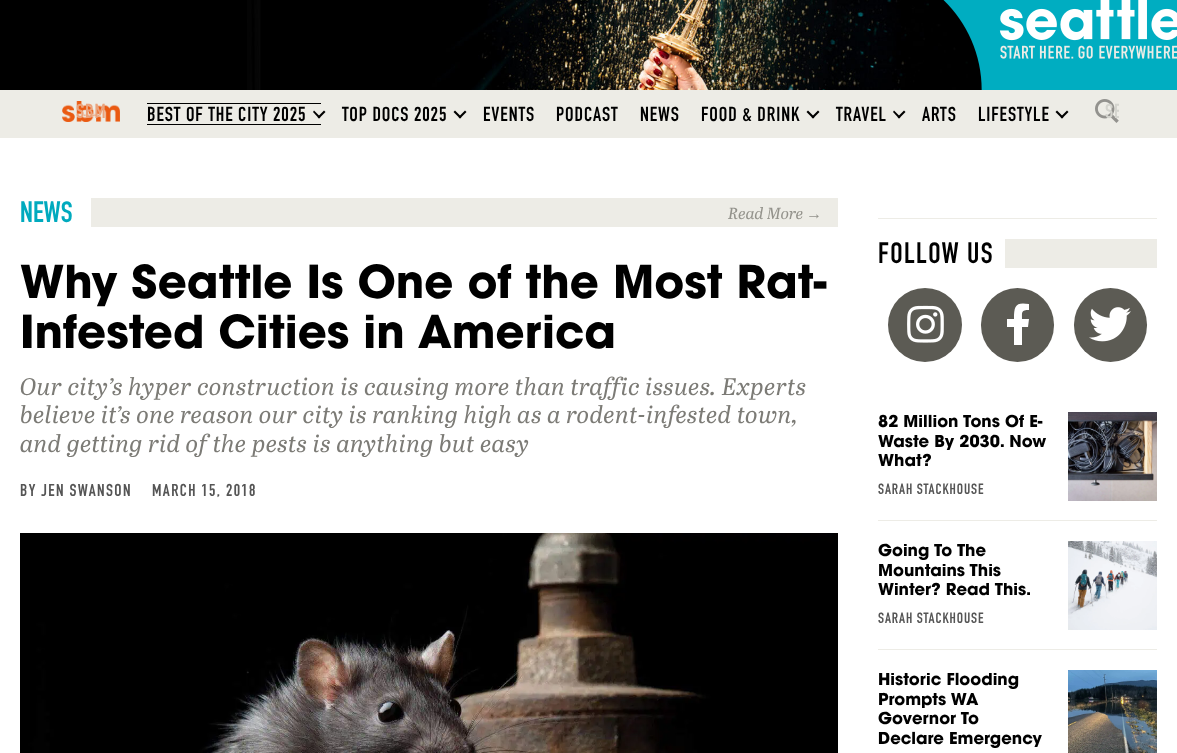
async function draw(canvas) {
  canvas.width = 1177
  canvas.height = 753
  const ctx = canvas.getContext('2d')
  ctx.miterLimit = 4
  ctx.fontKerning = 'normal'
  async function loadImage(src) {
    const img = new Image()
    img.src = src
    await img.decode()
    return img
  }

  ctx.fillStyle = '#fff'
  ctx.fillRect(0, 0, 1177, 753)
  ctx.fillStyle = '#000'
  ctx.fillRect(0, 0, 982, 90)
  ctx.drawImage(await loadImage('image0.png'), 247, 0, 721, 90)
  ctx.drawImage(await loadImage('image1.png'), 943, 0, 234, 90)
  ctx.fillStyle = '#edece6'
  ctx.fillRect(0, 90, 1177, 48)
  ctx.drawImage(await loadImage('image2.png'), 62, 101, 58, 21)
  ctx.letterSpacing = '0.9px'
  ctx.font = '20px "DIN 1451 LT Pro"'
  ctx.fillStyle = '#eba37c'
  ctx.fillText('SBM', 76, 118)
  ctx.fillStyle = '#000'
  ctx.fillRect(147, 103, 174, 1)
  ctx.fillRect(147, 124, 174, 1)
  ctx.fillText('BEST OF THE CITY 2025', 147, 121)
  ctx.beginPath()
  ctx.moveTo(324, 110.5)
  ctx.lineTo(325.5, 112)
  ctx.lineTo(319, 118.5)
  ctx.lineTo(317.5, 117)
  ctx.closePath()
  ctx.fill()
  ctx.beginPath()
  ctx.moveTo(314, 110.5)
  ctx.lineTo(320.5, 117)
  ctx.lineTo(319, 118.5)
  ctx.lineTo(313, 112)
  ctx.closePath()
  ctx.fill()
  ctx.fillText('TOP DOCS 2025', 342, 121)
  ctx.beginPath()
  ctx.moveTo(465, 110.5)
  ctx.lineTo(466.5, 112)
  ctx.lineTo(460, 118.5)
  ctx.lineTo(458.5, 117)
  ctx.closePath()
  ctx.fill()
  ctx.beginPath()
  ctx.moveTo(455, 110.5)
  ctx.lineTo(461.5, 117)
  ctx.lineTo(460, 118.5)
  ctx.lineTo(453.5, 112)
  ctx.closePath()
  ctx.fill()
  ctx.fillText('EVENTS', 483, 121)
  ctx.fillText('PODCAST', 556, 121)
  ctx.fillText('NEWS', 640, 121)
  ctx.fillText('FOOD & DRINK', 701, 121)
  ctx.beginPath()
  ctx.moveTo(818, 110.5)
  ctx.lineTo(819.5, 112)
  ctx.lineTo(813, 118.5)
  ctx.lineTo(811.5, 117)
  ctx.closePath()
  ctx.fill()
  ctx.beginPath()
  ctx.moveTo(808, 110.5)
  ctx.lineTo(814.5, 117)
  ctx.lineTo(813, 118.5)
  ctx.lineTo(806.5, 112)
  ctx.closePath()
  ctx.fill()
  ctx.fillText('TRAVEL', 836, 121)
  ctx.beginPath()
  ctx.moveTo(904, 110.5)
  ctx.lineTo(905.5, 112)
  ctx.lineTo(899, 118.5)
  ctx.lineTo(897.5, 117)
  ctx.closePath()
  ctx.fill()
  ctx.beginPath()
  ctx.moveTo(894, 110.5)
  ctx.lineTo(900.5, 117)
  ctx.lineTo(899, 118.5)
  ctx.lineTo(893, 112)
  ctx.closePath()
  ctx.fill()
  ctx.fillText('ARTS', 922, 121)
  ctx.fillText('LIFESTYLE', 978, 121)
  ctx.beginPath()
  ctx.moveTo(1067, 110.5)
  ctx.lineTo(1068.5, 112)
  ctx.lineTo(1062, 118.5)
  ctx.lineTo(1060.5, 117)
  ctx.closePath()
  ctx.fill()
  ctx.beginPath()
  ctx.moveTo(1057, 110.5)
  ctx.lineTo(1063.5, 117)
  ctx.lineTo(1062, 118.5)
  ctx.lineTo(1055.5, 112)
  ctx.closePath()
  ctx.fill()
  ctx.drawImage(await loadImage('image3.png'), 1095, 99, 24, 24)
  ctx.save()
  ctx.beginPath()
  ctx.rect(1095, 87, 24, 48)
  ctx.clip()
  ctx.fillStyle = '#d4d4ce'
  ctx.fillText('SE', 1105, 118)
  ctx.restore()
  ctx.letterSpacing = '0px'
  ctx.font = '29px "DIN 1451 LT Pro"'
  ctx.fillStyle = '#00aabe'
  ctx.fillText('NEWS', 20, 222)
  ctx.fillStyle = '#edece6'
  ctx.fillRect(91, 198, 747, 29)
  ctx.font = 'italic 16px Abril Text'
  ctx.fillStyle = '#93928b'
  ctx.fillText('Read More', 728, 219)
  ctx.font = 'italic 16px Liberation Serif'
  ctx.fillText('→', 806, 219)
  ctx.font = 'bold 45.1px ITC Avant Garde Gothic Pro'
  ctx.fillStyle = '#000'
  ctx.fillText('Why Seattle Is One of the Most Rat-', 20, 298)
  ctx.fillText('Infested Cities in America', 20, 348)
  ctx.letterSpacing = '0.4px'
  ctx.font = 'italic 24px Abril Text'
  ctx.fillStyle = '#7c7b76'
  ctx.fillText('Our city’s hyper construction is causing more than traffic issues. Experts', 20, 395)
  ctx.fillText('believe it’s one reason our city is ranking high as a rodent-infested town,', 20, 423)
  ctx.fillText('and getting rid of the pests is anything but easy', 20, 452)
  ctx.letterSpacing = '1.4px'
  ctx.font = '17px "DIN 1451 LT Pro"'
  ctx.fillStyle = '#555'
  ctx.fillText('BY JEN SWANSON', 20, 496)
  ctx.fillText('MARCH 15, 2018', 152, 496)
  ctx.drawImage(await loadImage('image4.png'), 20, 533, 818, 220)
  ctx.fillStyle = '#edece6'
  ctx.fillRect(878, 218, 279, 1)
  ctx.font = '29px "DIN 1451 LT Pro"'
  ctx.fillStyle = '#000'
  ctx.fillText('FOLLOW US', 878, 263)
  ctx.fillStyle = '#edece6'
  ctx.fillRect(1005, 239, 152, 29)
  ctx.fillStyle = '#5c5b54'
  ctx.beginPath()
  ctx.arc(925, 325, 37, 0, 2 * Math.PI)
  ctx.fill()
  ctx.drawImage(await loadImage('image5.png'), 907, 305, 37, 38)
  ctx.beginPath()
  ctx.roundRect(981, 288, 73, 74, 36.5)
  ctx.fill()
  ctx.fillStyle = '#fff'
  ctx.beginPath()
  ctx.moveTo(1028, 327)
  ctx.lineTo(1022, 327)
  ctx.lineTo(1022, 345)
  ctx.lineTo(1014, 345)
  ctx.lineTo(1014, 327)
  ctx.lineTo(1007, 327)
  ctx.lineTo(1007, 319)
  ctx.lineTo(1014, 319)
  ctx.bezierCurveTo(1014, 305, 1016, 302, 1029, 304)
  ctx.lineTo(1029, 310)
  ctx.bezierCurveTo(1021, 310, 1022, 312, 1022, 319)
  ctx.lineTo(1029, 319)
  ctx.closePath()
  ctx.fill()
  ctx.fillStyle = '#5c5b54'
  ctx.beginPath()
  ctx.roundRect(1074, 288, 73, 74, 36.5)
  ctx.fill()
  ctx.drawImage(await loadImage('image6.png'), 1089, 307, 42, 35)
  ctx.save()
  ctx.beginPath()
  ctx.rect(878, 412, 279, 109)
  ctx.clip()
  ctx.fillStyle = '#edece6'
  ctx.beginPath()
  ctx.moveTo(779, 313)
  ctx.lineTo(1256, 313)
  ctx.lineTo(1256, 620)
  ctx.lineTo(779, 620)
  ctx.closePath()
  ctx.moveTo(878, 391)
  ctx.lineTo(1157, 391)
  ctx.bezierCurveTo(1163, 391, 1167, 395, 1167, 401)
  ctx.lineTo(1167, 510)
  ctx.bezierCurveTo(1167, 516, 1163, 520, 1157, 520)
  ctx.lineTo(878, 520)
  ctx.bezierCurveTo(872, 520, 868, 516, 868, 510)
  ctx.lineTo(868, 401)
  ctx.bezierCurveTo(868, 395, 872, 391, 878, 391)
  ctx.closePath()
  ctx.fill('evenodd')
  ctx.restore()
  ctx.letterSpacing = '0px'
  ctx.font = 'bold 16.4px ITC Avant Garde Gothic Pro'
  ctx.fillStyle = '#000'
  ctx.fillText('82 Million Tons Of E-', 878, 427)
  ctx.fillText('Waste By 2030. Now', 878, 447)
  ctx.fillText('What?', 878, 466)
  ctx.letterSpacing = '0.9px'
  ctx.font = '14.75px "DIN 1451 LT Pro"'
  ctx.fillStyle = '#555'
  ctx.fillText('SARAH STACKHOUSE', 878, 494)
  ctx.drawImage(await loadImage('image7.png'), 1068, 412, 89, 89)
  ctx.save()
  ctx.beginPath()
  ctx.rect(878, 541, 279, 109)
  ctx.clip()
  ctx.fillStyle = '#edece6'
  ctx.beginPath()
  ctx.moveTo(779, 442)
  ctx.lineTo(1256, 442)
  ctx.lineTo(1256, 749)
  ctx.lineTo(779, 749)
  ctx.closePath()
  ctx.moveTo(878, 520)
  ctx.lineTo(1157, 520)
  ctx.bezierCurveTo(1163, 520, 1167, 524, 1167, 530)
  ctx.lineTo(1167, 639)
  ctx.bezierCurveTo(1167, 645, 1163, 649, 1157, 649)
  ctx.lineTo(878, 649)
  ctx.bezierCurveTo(872, 649, 868, 645, 868, 639)
  ctx.lineTo(868, 530)
  ctx.bezierCurveTo(868, 524, 872, 520, 878, 520)
  ctx.closePath()
  ctx.fill('evenodd')
  ctx.restore()
  ctx.letterSpacing = '0px'
  ctx.font = 'bold 16.4px ITC Avant Garde Gothic Pro'
  ctx.fillStyle = '#000'
  ctx.fillText('Going To The', 878, 556)
  ctx.fillText('Mountains This', 878, 576)
  ctx.fillText('Winter? Read This.', 878, 595)
  ctx.letterSpacing = '0.9px'
  ctx.font = '14.75px "DIN 1451 LT Pro"'
  ctx.fillStyle = '#555'
  ctx.fillText('SARAH STACKHOUSE', 878, 623)
  ctx.drawImage(await loadImage('image8.png'), 1068, 541, 89, 89)
  ctx.letterSpacing = '0px'
  ctx.font = 'bold 16.4px ITC Avant Garde Gothic Pro'
  ctx.fillStyle = '#000'
  ctx.fillText('Historic Flooding', 878, 685)
  ctx.fillText('Prompts WA', 878, 705)
  ctx.fillText('Governor To', 878, 724)
  ctx.fillText('Declare Emergency', 878, 744)
  ctx.drawImage(await loadImage('image9.png'), 1068, 670, 89, 83)
}

draw(document.querySelector('canvas'))
